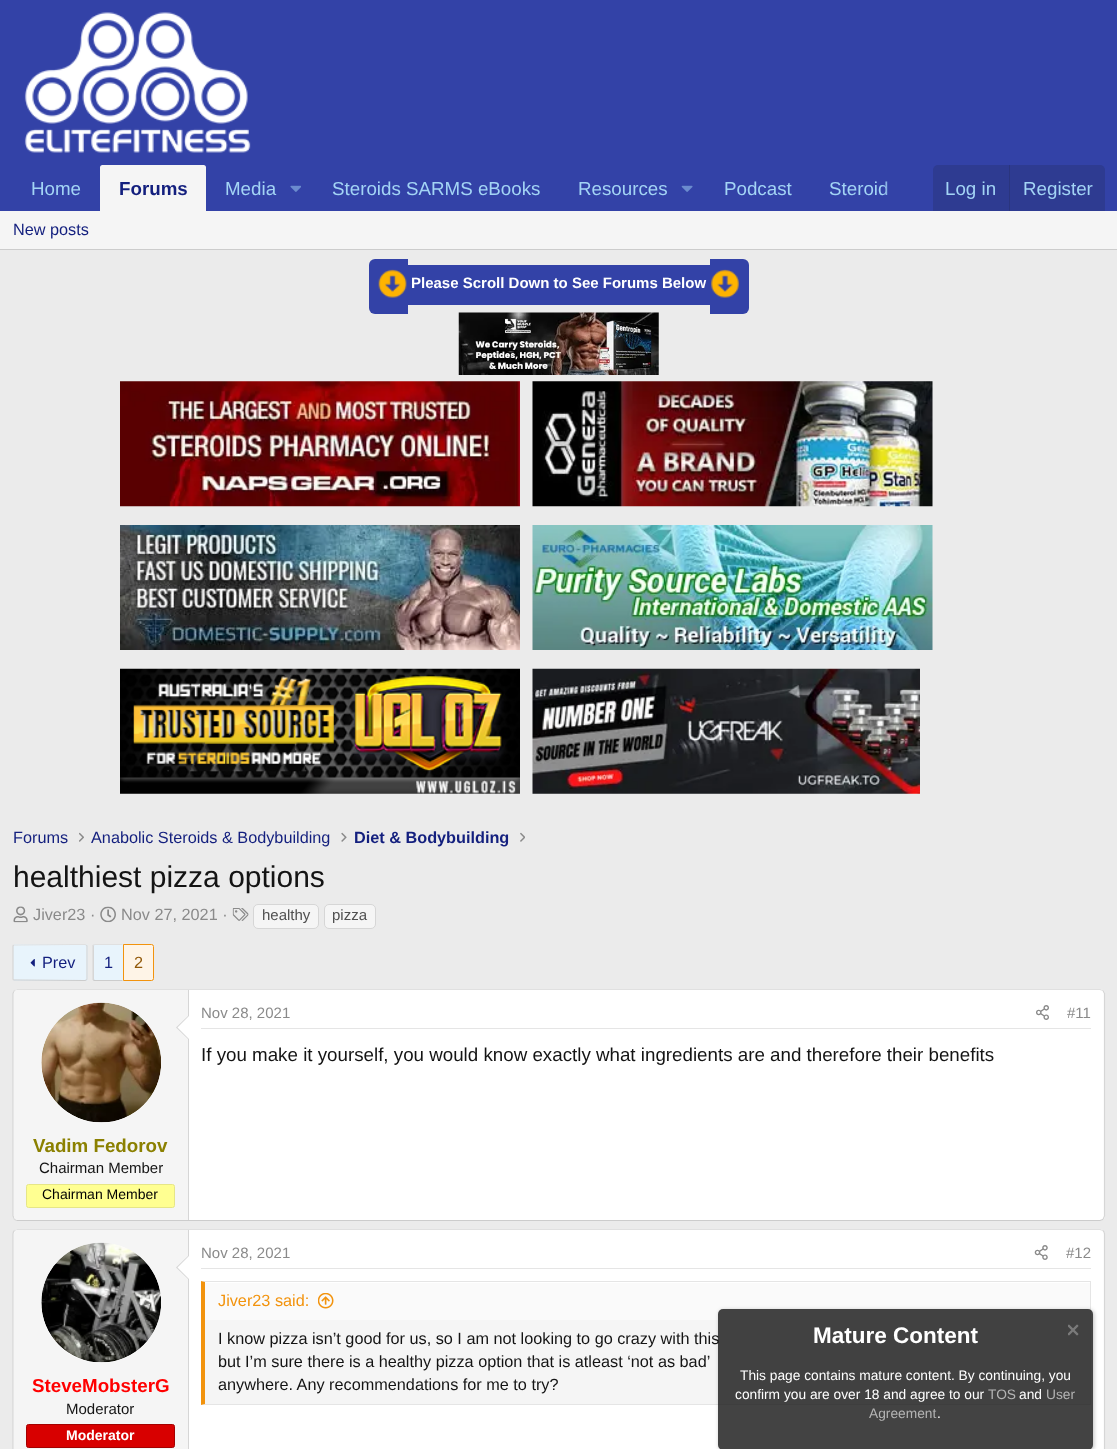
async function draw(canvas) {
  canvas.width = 1117
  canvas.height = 1449
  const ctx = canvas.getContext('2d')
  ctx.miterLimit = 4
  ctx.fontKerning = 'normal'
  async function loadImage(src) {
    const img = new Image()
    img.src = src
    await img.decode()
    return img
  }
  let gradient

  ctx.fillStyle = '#ebebeb'
  ctx.fillRect(0, 0, 1117, 1449)
  ctx.fillStyle = '#3342a7'
  ctx.fillRect(0, 0, 1117, 211)
  ctx.drawImage(await loadImage('image0.png'), 24, 12, 227, 141)
  ctx.font = '18.75px Liberation Sans'
  ctx.fillStyle = '#a3d4f5'
  ctx.fillText('Home', 31, 195)
  ctx.fillStyle = '#f5f5f5'
  ctx.beginPath()
  ctx.roundRect(100, 165, 106, 46, [2.5, 2.5, 0, 0])
  ctx.fill()
  ctx.font = 'bold 18.75px Liberation Sans'
  ctx.fillStyle = '#131f7e'
  ctx.fillText('Forums', 119, 195)
  ctx.font = '18.75px Liberation Sans'
  ctx.fillStyle = '#a3d4f5'
  ctx.fillText('Media', 225, 195)
  ctx.drawImage(await loadImage('image1.png'), 290, 185, 11, 7)
  ctx.fillText('Steroids SARMS eBooks', 332, 195)
  ctx.fillText('Resources', 578, 195)
  ctx.drawImage(await loadImage('image2.png'), 681, 185, 12, 7)
  ctx.fillText('Podcast', 724, 195)
  ctx.fillText('Steroid', 829, 195)
  gradient = ctx.createLinearGradient(883, 188, 933, 188)
  gradient.addColorStop(0, '#3342a700')
  gradient.addColorStop(0.33, '#3342a7')
  ctx.fillStyle = gradient
  ctx.fillRect(883, 181, 5, 14)
  ctx.fillStyle = '#2e3b91'
  ctx.beginPath()
  ctx.roundRect(933, 165, 172, 46, [5, 5, 0, 0])
  ctx.fill()
  ctx.fillStyle = '#a3d4f5'
  ctx.fillText('Log in', 945, 195)
  ctx.fillStyle = '#2a357e'
  ctx.fillRect(1009, 165, 1, 46)
  ctx.fillStyle = '#a3d4f5'
  ctx.fillText('Register', 1023, 195)
  ctx.fillStyle = '#f5f5f5'
  ctx.fillRect(0, 211, 1117, 38)
  ctx.fillStyle = '#ccc'
  ctx.fillRect(0, 249, 1117, 1)
  ctx.font = '16.25px Liberation Sans'
  ctx.fillStyle = '#131f7e'
  ctx.fillText('New posts', 13, 235)
  ctx.fillStyle = '#3342a7'
  ctx.beginPath()
  ctx.roundRect(369, 259, 39, 55, [6, 0, 0, 6])
  ctx.fill()
  ctx.drawImage(await loadImage('image3.png'), 378, 269, 29, 29)
  ctx.fillRect(408, 265, 302, 40)
  ctx.font = 'bold 15px Liberation Sans'
  ctx.fillStyle = '#fff'
  ctx.fillText('Please Scroll Down to See Forums Below', 411, 288)
  ctx.fillStyle = '#3342a7'
  ctx.beginPath()
  ctx.roundRect(710, 259, 39, 55, [0, 6, 6, 0])
  ctx.fill()
  ctx.drawImage(await loadImage('image4.png'), 711, 269, 28, 29)
  ctx.drawImage(await loadImage('image5.png'), 458, 312, 201, 63)
  ctx.drawImage(await loadImage('image6.png'), 120, 381, 400, 126)
  ctx.drawImage(await loadImage('image7.png'), 532, 381, 401, 126)
  ctx.drawImage(await loadImage('image8.png'), 120, 525, 400, 125)
  ctx.drawImage(await loadImage('image9.png'), 532, 525, 401, 125)
  ctx.drawImage(await loadImage('image10.png'), 120, 668, 400, 126)
  ctx.drawImage(await loadImage('image11.png'), 532, 668, 388, 126)
  ctx.font = '16.25px Liberation Sans'
  ctx.fillStyle = '#131f7e'
  ctx.fillText('Forums', 13, 843)
  ctx.drawImage(await loadImage('image12.png'), 79, 832, 5, 10)
  ctx.fillText('Anabolic Steroids & Bodybuilding', 91, 843)
  ctx.drawImage(await loadImage('image13.png'), 341, 832, 6, 10)
  ctx.font = 'bold 16.25px Liberation Sans'
  ctx.fillText('Diet & Bodybuilding', 354, 843)
  ctx.drawImage(await loadImage('image14.png'), 520, 832, 5, 10)
  ctx.font = '30px Liberation Sans'
  ctx.fillStyle = '#141414'
  ctx.fillText('healthiest pizza options', 13, 887)
  ctx.drawImage(await loadImage('image15.png'), 13, 906, 15, 17)
  ctx.font = '16.25px Liberation Sans'
  ctx.fillStyle = '#8a8a8a'
  ctx.fillText('Jiver23 ·', 33, 920)
  ctx.drawImage(await loadImage('image16.png'), 100, 906, 16, 17)
  ctx.fillText('Nov 27, 2021 ·', 121, 920)
  ctx.drawImage(await loadImage('image17.png'), 232, 908, 17, 13)
  ctx.fillStyle = '#f5f5f5'
  ctx.beginPath()
  ctx.roundRect(253.5, 904.5, 65, 24, 4.5)
  ctx.fill()
  ctx.strokeStyle = '#d6d6d6'
  ctx.stroke()
  ctx.font = '15px Liberation Sans'
  ctx.fillStyle = '#4f4f4f'
  ctx.fillText('healthy', 262, 920)
  ctx.fillStyle = '#f5f5f5'
  ctx.beginPath()
  ctx.roundRect(324.5, 904.5, 51, 24, 4.5)
  ctx.fill()
  ctx.stroke()
  ctx.fillStyle = '#4f4f4f'
  ctx.fillText('pizza', 332, 920)
  ctx.fillStyle = '#e8f4fc'
  ctx.beginPath()
  ctx.roundRect(13, 944, 75, 37, 2.5)
  ctx.fill()
  ctx.beginPath()
  ctx.moveTo(13.5, 945)
  ctx.lineTo(73.5, 944.5)
  ctx.lineTo(85, 944.5)
  ctx.lineTo(86.5, 945)
  ctx.strokeStyle = '#e0e0e0'
  ctx.lineWidth = 1.2
  ctx.stroke()
  ctx.beginPath()
  ctx.moveTo(86.5, 945)
  ctx.lineTo(87, 946)
  ctx.lineTo(87, 979)
  ctx.lineTo(86.5, 980)
  ctx.strokeStyle = '#d6d6d6'
  ctx.stroke()
  ctx.beginPath()
  ctx.moveTo(86.5, 980)
  ctx.lineTo(85, 980.5)
  ctx.lineTo(13.5, 980)
  ctx.strokeStyle = '#ccc'
  ctx.stroke()
  ctx.beginPath()
  ctx.moveTo(13.5, 980)
  ctx.lineTo(13, 979)
  ctx.lineTo(13, 946)
  ctx.lineTo(13.5, 945)
  ctx.strokeStyle = '#d6d6d6'
  ctx.stroke()
  ctx.drawImage(await loadImage('image18.png'), 30, 959, 5, 8)
  ctx.font = '16.25px Liberation Sans'
  ctx.fillStyle = '#131f7e'
  ctx.fillText('Prev', 42, 968)
  ctx.fillStyle = '#e8f4fc'
  ctx.beginPath()
  ctx.roundRect(93, 944, 30, 37, [2.5, 0, 0, 2.5])
  ctx.fill()
  ctx.fillStyle = '#e0e0e0'
  ctx.beginPath()
  ctx.moveTo(95, 944)
  ctx.lineTo(122.5, 944)
  ctx.lineTo(122.5, 945)
  ctx.lineTo(95, 945)
  ctx.lineTo(94, 945.5)
  ctx.lineTo(93, 944.5)
  ctx.closePath()
  ctx.fill()
  ctx.fillStyle = '#ccc'
  ctx.beginPath()
  ctx.moveTo(94.5, 981)
  ctx.bezierCurveTo(94, 981, 93.5, 981, 93, 980.5)
  ctx.lineTo(94, 979.5)
  ctx.lineTo(95, 980)
  ctx.lineTo(122.5, 980)
  ctx.lineTo(122.5, 981)
  ctx.closePath()
  ctx.fill()
  ctx.fillStyle = '#d6d6d6'
  ctx.beginPath()
  ctx.moveTo(94, 979.5)
  ctx.lineTo(93, 980.5)
  ctx.lineTo(92.5, 979.5)
  ctx.lineTo(92.5, 945.5)
  ctx.lineTo(93, 944.5)
  ctx.lineTo(94, 945.5)
  ctx.closePath()
  ctx.fill()
  ctx.fillStyle = '#131f7e'
  ctx.fillText('1', 104, 968)
  ctx.fillStyle = '#fef4e7'
  ctx.beginPath()
  ctx.roundRect(123.5, 944.5, 30, 36, [0, 2, 2, 0])
  ctx.fill()
  ctx.strokeStyle = '#f2930d'
  ctx.lineWidth = 1
  ctx.stroke()
  ctx.fillStyle = '#915808'
  ctx.fillText('2', 134, 968)
  ctx.fillStyle = '#fff'
  ctx.beginPath()
  ctx.roundRect(13, 989, 1092, 232, 5)
  ctx.fill()
  ctx.beginPath()
  ctx.moveTo(14.5, 990.5)
  ctx.lineTo(17.5, 989.5)
  ctx.lineTo(1100, 989.5)
  ctx.lineTo(1103, 990.5)
  ctx.strokeStyle = '#e0e0e0'
  ctx.lineWidth = 1.2
  ctx.stroke()
  ctx.beginPath()
  ctx.moveTo(1103, 990.5)
  ctx.lineTo(1104.5, 993.5)
  ctx.lineTo(1104.5, 1179)
  ctx.lineTo(1104.5, 1216)
  ctx.lineTo(1103, 1219.5)
  ctx.strokeStyle = '#d6d6d6'
  ctx.stroke()
  ctx.beginPath()
  ctx.moveTo(1103, 1219.5)
  ctx.lineTo(1100, 1220.5)
  ctx.lineTo(17.5, 1220.5)
  ctx.lineTo(14.5, 1219.5)
  ctx.strokeStyle = '#ccc'
  ctx.stroke()
  ctx.beginPath()
  ctx.moveTo(14.5, 1219.5)
  ctx.lineTo(13, 1216)
  ctx.lineTo(13, 993.5)
  ctx.lineTo(14.5, 990.5)
  ctx.strokeStyle = '#d6d6d6'
  ctx.stroke()
  ctx.fillStyle = '#e5e5e5'
  ctx.fillRect(201, 1028, 890, 1)
  ctx.font = '15px Liberation Sans'
  ctx.fillStyle = '#8a8a8a'
  ctx.fillText('Nov 28, 2021', 201, 1018)
  ctx.drawImage(await loadImage('image19.png'), 1036, 1005, 13, 15)
  ctx.fillText('#11', 1067, 1018)
  ctx.font = '18.75px Liberation Sans'
  ctx.fillStyle = '#141414'
  ctx.fillText('If you make it yourself, you would know exactly what ingredients are and therefore their benefits', 201, 1061)
  ctx.fillStyle = '#f5f5f5'
  ctx.beginPath()
  ctx.roundRect(14, 990, 175, 230, [4, 0, 0, 4])
  ctx.fill()
  ctx.fillStyle = '#d6d6d6'
  ctx.fillRect(188, 990, 1, 230)
  ctx.fillStyle = '#fff'
  ctx.beginPath()
  ctx.arc(101, 1063, 60, 0, 2 * Math.PI)
  ctx.fill()
  ctx.drawImage(await loadImage('image20.png'), 41, 1002, 120, 121)
  ctx.fillStyle = '#d6d6d6'
  ctx.beginPath()
  ctx.moveTo(189, 1015)
  ctx.lineTo(189, 1040)
  ctx.lineTo(176, 1027.5)
  ctx.closePath()
  ctx.fill()
  ctx.fillStyle = '#fff'
  ctx.beginPath()
  ctx.moveTo(189, 1016)
  ctx.lineTo(189, 1039)
  ctx.lineTo(177.5, 1027.5)
  ctx.closePath()
  ctx.fill()
  ctx.font = 'bold 18.75px Liberation Sans'
  ctx.fillStyle = '#8b8000'
  ctx.fillText('Vadim Fedorov', 33, 1152)
  ctx.font = '15px Liberation Sans'
  ctx.fillStyle = '#141414'
  ctx.fillText('Chairman Member', 39, 1173)
  ctx.fillStyle = '#ffff91'
  ctx.beginPath()
  ctx.roundRect(26.5, 1184.5, 148, 23, 2)
  ctx.fill()
  ctx.strokeStyle = '#e6e687'
  ctx.lineWidth = 1
  ctx.stroke()
  ctx.font = '14px Liberation Sans'
  ctx.fillStyle = '#000'
  ctx.fillText('Chairman Member', 42, 1199)
  ctx.fillStyle = '#fff'
  ctx.beginPath()
  ctx.roundRect(13, 1229, 1092, 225, 5)
  ctx.fill()
  ctx.beginPath()
  ctx.moveTo(14.5, 1230.5)
  ctx.lineTo(17.5, 1229.5)
  ctx.lineTo(1100, 1229.5)
  ctx.lineTo(1103, 1230.5)
  ctx.strokeStyle = '#e0e0e0'
  ctx.lineWidth = 1.2
  ctx.stroke()
  ctx.beginPath()
  ctx.moveTo(1103, 1230.5)
  ctx.bezierCurveTo(1104, 1231.5, 1104.5, 1232.5, 1104.5, 1234)
  ctx.lineTo(1104.5, 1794)
  ctx.bezierCurveTo(1104.5, 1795, 1104, 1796, 1103, 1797)
  ctx.strokeStyle = '#d6d6d6'
  ctx.stroke()
  ctx.beginPath()
  ctx.moveTo(14.5, 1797)
  ctx.bezierCurveTo(13.5, 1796, 13, 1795, 13, 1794)
  ctx.lineTo(13, 1234)
  ctx.bezierCurveTo(13, 1232.5, 13.5, 1231.5, 14.5, 1230.5)
  ctx.stroke()
  ctx.fillStyle = '#e5e5e5'
  ctx.fillRect(201, 1268, 890, 1)
  ctx.font = '15px Liberation Sans'
  ctx.fillStyle = '#8a8a8a'
  ctx.fillText('Nov 28, 2021', 201, 1258)
  ctx.drawImage(await loadImage('image21.png'), 1034, 1245, 14, 15)
  ctx.fillText('#12', 1066, 1258)
  ctx.fillStyle = '#f5f5f5'
  ctx.fillRect(205, 1320, 885, 84)
  ctx.fillStyle = '#e5e5e5'
  ctx.beginPath()
  ctx.moveTo(201, 1281)
  ctx.lineTo(1091, 1281)
  ctx.lineTo(1090, 1282)
  ctx.lineTo(205, 1282)
  ctx.closePath()
  ctx.fill()
  ctx.fillRect(1090, 1281, 1, 124)
  ctx.beginPath()
  ctx.moveTo(1091, 1405)
  ctx.lineTo(201, 1405)
  ctx.lineTo(205, 1404)
  ctx.lineTo(1090, 1404)
  ctx.closePath()
  ctx.fill()
  ctx.fillStyle = '#f2930d'
  ctx.beginPath()
  ctx.moveTo(201, 1405)
  ctx.lineTo(201, 1281)
  ctx.lineTo(205, 1282)
  ctx.lineTo(205, 1404)
  ctx.closePath()
  ctx.fill()
  ctx.fillStyle = '#fafafa'
  ctx.fillRect(205, 1283, 885, 37)
  ctx.font = '16.25px Liberation Sans'
  ctx.fillStyle = '#f2930d'
  ctx.fillText('Jiver23 said:', 218, 1306)
  ctx.drawImage(await loadImage('image22.png'), 318, 1293, 16, 16)
  ctx.fillStyle = '#141414'
  ctx.fillText('I know pizza isn’t good for us, so I am not looking to go crazy with this', 218, 1344)
  ctx.fillText('but I’m sure there is a healthy pizza option that is atleast ‘not as bad’', 218, 1367)
  ctx.fillText('anywhere. Any recommendations for me to try?', 218, 1390)
  ctx.fillStyle = '#f5f5f5'
  ctx.beginPath()
  ctx.moveTo(18, 1230)
  ctx.lineTo(189, 1230)
  ctx.lineTo(189, 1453)
  ctx.lineTo(18, 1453)
  ctx.bezierCurveTo(16, 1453, 14, 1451, 14, 1449)
  ctx.lineTo(14, 1234)
  ctx.bezierCurveTo(14, 1232, 16, 1230, 18, 1230)
  ctx.closePath()
  ctx.fill()
  ctx.fillStyle = '#d6d6d6'
  ctx.fillRect(188, 1230, 1, 219)
  ctx.fillStyle = '#fff'
  ctx.beginPath()
  ctx.arc(101, 1303, 60, 0, 2 * Math.PI)
  ctx.fill()
  ctx.drawImage(await loadImage('image23.png'), 41, 1242, 120, 121)
  ctx.fillStyle = '#d6d6d6'
  ctx.beginPath()
  ctx.moveTo(189, 1255)
  ctx.lineTo(189, 1280)
  ctx.lineTo(176, 1267.5)
  ctx.closePath()
  ctx.fill()
  ctx.fillStyle = '#fff'
  ctx.beginPath()
  ctx.moveTo(189, 1256)
  ctx.lineTo(189, 1279)
  ctx.lineTo(177.5, 1267.5)
  ctx.closePath()
  ctx.fill()
  ctx.font = 'bold 18.75px Liberation Sans'
  ctx.fillStyle = '#f00'
  ctx.fillText('SteveMobsterG', 32, 1392)
  ctx.font = '15px Liberation Sans'
  ctx.fillStyle = '#141414'
  ctx.fillText('Moderator', 66, 1414)
  ctx.fillStyle = '#d80000'
  ctx.beginPath()
  ctx.roundRect(26.5, 1424.5, 148, 23, 2)
  ctx.fill()
  ctx.strokeStyle = '#a50000'
  ctx.lineWidth = 1
  ctx.stroke()
  ctx.font = 'bold 14px Liberation Sans'
  ctx.fillStyle = '#fff'
  ctx.fillText('Moderator', 66, 1440)
  ctx.save()
  ctx.beginPath()
  ctx.moveTo(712, 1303)
  ctx.lineTo(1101, 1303)
  ctx.lineTo(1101, 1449)
  ctx.lineTo(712, 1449)
  ctx.closePath()
  ctx.moveTo(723, 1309)
  ctx.lineTo(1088, 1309)
  ctx.bezierCurveTo(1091, 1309, 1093, 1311, 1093, 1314)
  ctx.lineTo(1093, 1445)
  ctx.bezierCurveTo(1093, 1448, 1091, 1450, 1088, 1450)
  ctx.lineTo(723, 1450)
  ctx.bezierCurveTo(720, 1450, 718, 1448, 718, 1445)
  ctx.lineTo(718, 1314)
  ctx.bezierCurveTo(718, 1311, 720, 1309, 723, 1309)
  ctx.closePath()
  ctx.clip('evenodd')
  ctx.fillStyle = '#00000040'
  ctx.filter = 'blur(2px)'
  ctx.beginPath()
  ctx.roundRect(719, 1310, 375, 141, 5)
  ctx.fill()
  ctx.filter = 'none'
  ctx.restore()
  ctx.fillStyle = '#141414cc'
  ctx.beginPath()
  ctx.roundRect(718, 1309, 375, 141, 5)
  ctx.fill()
  ctx.drawImage(await loadImage('image24.png'), 1068, 1324, 11, 12)
  ctx.font = 'bold 22.5px Liberation Sans'
  ctx.fillStyle = '#fff'
  ctx.fillText('Mature Content', 813, 1343)
  ctx.font = '13.75px Liberation Sans'
  ctx.fillText('This page contains mature content. By continuing, you', 740, 1380)
  ctx.fillText('confirm you are over 18 and agree to our', 735, 1399)
  ctx.fillStyle = '#b4b4b4'
  ctx.fillText('TOS', 988, 1399)
  ctx.fillStyle = '#fff'
  ctx.fillText('and', 1019, 1399)
  ctx.fillStyle = '#b4b4b4'
  ctx.fillText('User', 1046, 1399)
  ctx.fillText('Agreement', 869, 1418)
  ctx.fillStyle = '#fff'
  ctx.fillText('.', 937, 1418)
}

draw(document.querySelector('canvas'))
